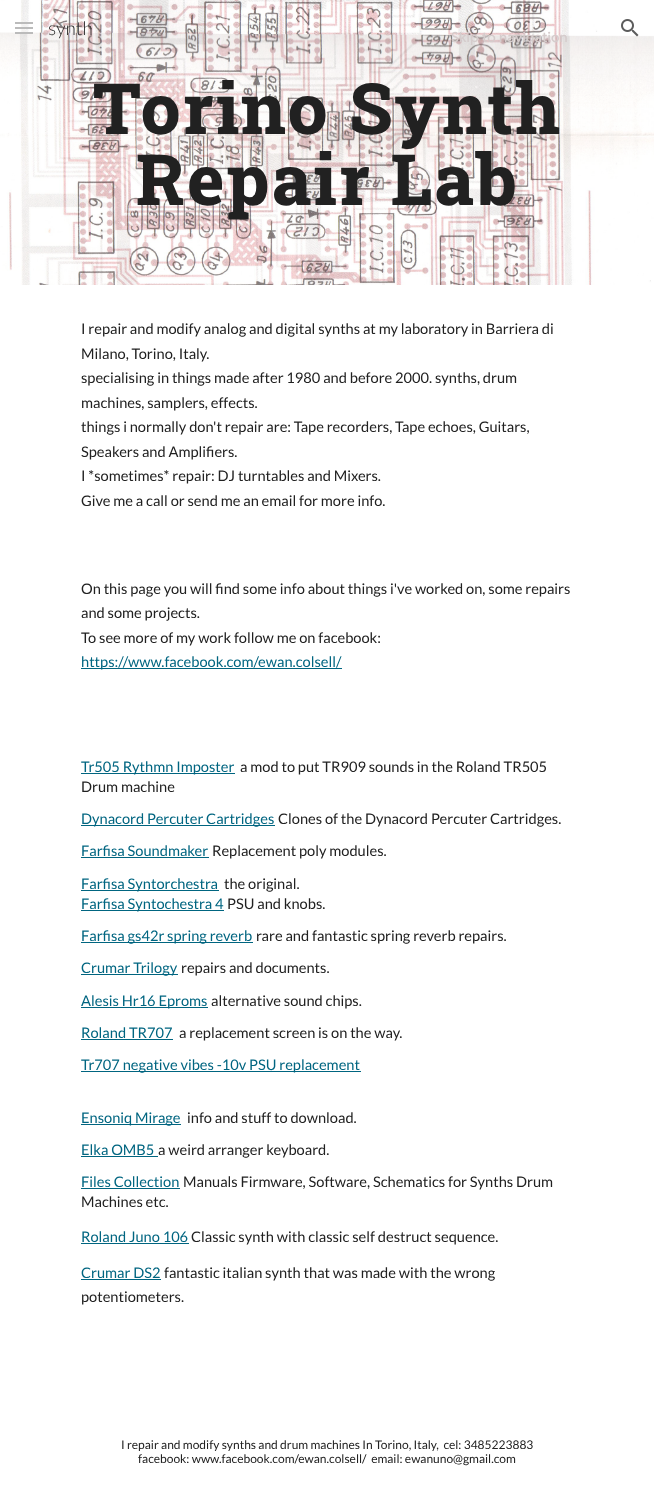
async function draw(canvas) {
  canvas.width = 654
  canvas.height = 1497
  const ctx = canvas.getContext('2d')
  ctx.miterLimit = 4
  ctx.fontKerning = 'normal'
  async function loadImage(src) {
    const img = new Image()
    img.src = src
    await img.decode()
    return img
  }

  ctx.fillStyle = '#fff'
  ctx.fillRect(0, 0, 654, 1497)
  ctx.drawImage(await loadImage('image1.png'), 0, 0, 654, 285)
  ctx.fillStyle = '#b2b2b2'
  ctx.fillRect(15, 22, 18, 2)
  ctx.fillRect(15, 27, 18, 2)
  ctx.fillRect(15, 32, 18, 2)
  ctx.fillStyle = '#ffffff1f'
  ctx.fillRect(15, 22, 25, 22)
  ctx.font = '300 19px Lato'
  ctx.fillStyle = '#2d2c2c'
  ctx.fillText('synth', 48, 35)
  ctx.drawImage(await loadImage('image0.png'), 621, 19, 18, 18)
  ctx.letterSpacing = '2px'
  ctx.font = '800 70.75px Roboto Slab'
  ctx.fillStyle = '#212121'
  ctx.fillText('Torino Synth', 93, 134)
  ctx.fillText('Repair Lab', 136, 205)
  ctx.letterSpacing = '0px'
  ctx.font = '14.65px Lato'
  ctx.fillText('I repair and modify analog and digital synths at my laboratory in Barriera di', 81, 334)
  ctx.fillText('Milano, Torino, Italy.', 81, 359)
  ctx.fillText('specialising in things made after 1980 and before 2000. synths, drum', 81, 383)
  ctx.fillText('machines, samplers, effects.', 81, 408)
  ctx.fillText('things i normally don\'t repair are: Tape recorders, Tape echoes, Guitars,', 81, 432)
  ctx.fillText('Speakers and Amplifiers.', 81, 457)
  ctx.fillText('I *sometimes* repair: DJ turntables and Mixers.', 81, 481)
  ctx.fillText('Give me a call or send me an email for more info.', 81, 506)
  ctx.fillText('On this page you will find some info about things i\'ve worked on, some repairs', 81, 594)
  ctx.fillText('and some projects.', 81, 618)
  ctx.fillText('To see more of my work follow me on facebook:', 81, 643)
  ctx.fillStyle = '#006580'
  ctx.fillRect(81, 668, 261, 1)
  ctx.fillText('https://www.facebook.com/ewan.colsell/', 81, 667)
  ctx.fillRect(81, 773, 154, 1)
  ctx.fillText('Tr505 Rythmn Imposter', 81, 772)
  ctx.fillStyle = '#212121'
  ctx.fillText('a mod to put TR909 sounds in the Roland TR505', 240, 772)
  ctx.fillText('Drum machine', 81, 792)
  ctx.fillStyle = '#006580'
  ctx.fillRect(81, 825, 194, 1)
  ctx.fillText('Dynacord Percuter Cartridges', 81, 824)
  ctx.fillStyle = '#212121'
  ctx.fillText('Clones of the Dynacord Percuter Cartridges.', 278, 824)
  ctx.fillStyle = '#006580'
  ctx.fillText('Farfisa Soundmaker', 81, 856)
  ctx.fillRect(81, 857, 128, 1)
  ctx.fillStyle = '#212121'
  ctx.fillText('Replacement poly modules.', 212, 856)
  ctx.fillStyle = '#006580'
  ctx.fillRect(81, 890, 138, 1)
  ctx.fillText('Farfisa Syntorchestra', 81, 889)
  ctx.fillStyle = '#212121'
  ctx.fillText('the original.', 224, 889)
  ctx.fillStyle = '#006580'
  ctx.fillRect(81, 910, 143, 1)
  ctx.fillText('Farfisa Syntochestra 4', 81, 909)
  ctx.fillStyle = '#212121'
  ctx.fillText('PSU and knobs.', 227, 909)
  ctx.fillStyle = '#006580'
  ctx.fillRect(81, 942, 172, 1)
  ctx.fillText('Farfisa gs42r spring reverb', 81, 941)
  ctx.fillStyle = '#212121'
  ctx.fillText('rare and fantastic spring reverb repairs.', 256, 941)
  ctx.fillStyle = '#006580'
  ctx.fillRect(81, 974, 97, 1)
  ctx.fillText('Crumar Trilogy', 81, 973)
  ctx.fillStyle = '#212121'
  ctx.fillText('repairs and documents.', 181, 973)
  ctx.fillStyle = '#006580'
  ctx.fillRect(81, 1007, 127, 1)
  ctx.fillText('Alesis Hr16 Eproms', 81, 1006)
  ctx.fillStyle = '#212121'
  ctx.fillText('alternative sound chips.', 211, 1006)
  ctx.fillStyle = '#006580'
  ctx.fillText('Roland TR707', 81, 1038)
  ctx.fillRect(81, 1039, 92, 1)
  ctx.fillStyle = '#212121'
  ctx.fillText('a replacement screen is on the way.', 179, 1038)
  ctx.fillStyle = '#006580'
  ctx.fillRect(81, 1071, 280, 1)
  ctx.fillText('Tr707 negative vibes -10v PSU replacement', 81, 1070)
  ctx.fillRect(81, 1124, 100, 1)
  ctx.fillText('Ensoniq Mirage', 81, 1123)
  ctx.fillStyle = '#212121'
  ctx.fillText('info and stuff to download.', 187, 1123)
  ctx.fillStyle = '#006580'
  ctx.fillText('Elka OMB5', 81, 1155)
  ctx.fillRect(81, 1156, 77, 1)
  ctx.fillStyle = '#212121'
  ctx.fillText('a weird arranger keyboard.', 158, 1155)
  ctx.fillStyle = '#006580'
  ctx.fillText('Files Collection', 81, 1187)
  ctx.fillRect(81, 1188, 99, 1)
  ctx.fillStyle = '#212121'
  ctx.fillText('Manuals Firmware, Software, Schematics for Synths Drum', 183, 1187)
  ctx.fillText('Machines etc.', 81, 1207)
  ctx.fillStyle = '#006580'
  ctx.fillText('Roland Juno 106', 81, 1242)
  ctx.fillRect(81, 1243, 108, 1)
  ctx.fillStyle = '#212121'
  ctx.fillText('Classic synth with classic self destruct sequence.', 191, 1242)
  ctx.fillStyle = '#006580'
  ctx.fillText('Crumar DS2', 81, 1278)
  ctx.fillRect(81, 1279, 80, 1)
  ctx.fillStyle = '#212121'
  ctx.fillText('fantastic italian synth that was made with the wrong', 164, 1278)
  ctx.fillText('potentiometers.', 81, 1302)
  ctx.font = '12px Lato'
  ctx.fillText('I repair and modify synths and drum machines In Torino, Italy,  cel: 3485223883', 121, 1449)
  ctx.fillText('facebook: www.facebook.com/ewan.colsell/  email: ewanuno@gmail.com', 138, 1463)
  ctx.letterSpacing = '0.1px'
  ctx.font = '500 14px Google Sans'
  ctx.fillStyle = '#d5cccc'
  ctx.fillText('Skip to navigation', 451, 42)
}

draw(document.querySelector('canvas'))
